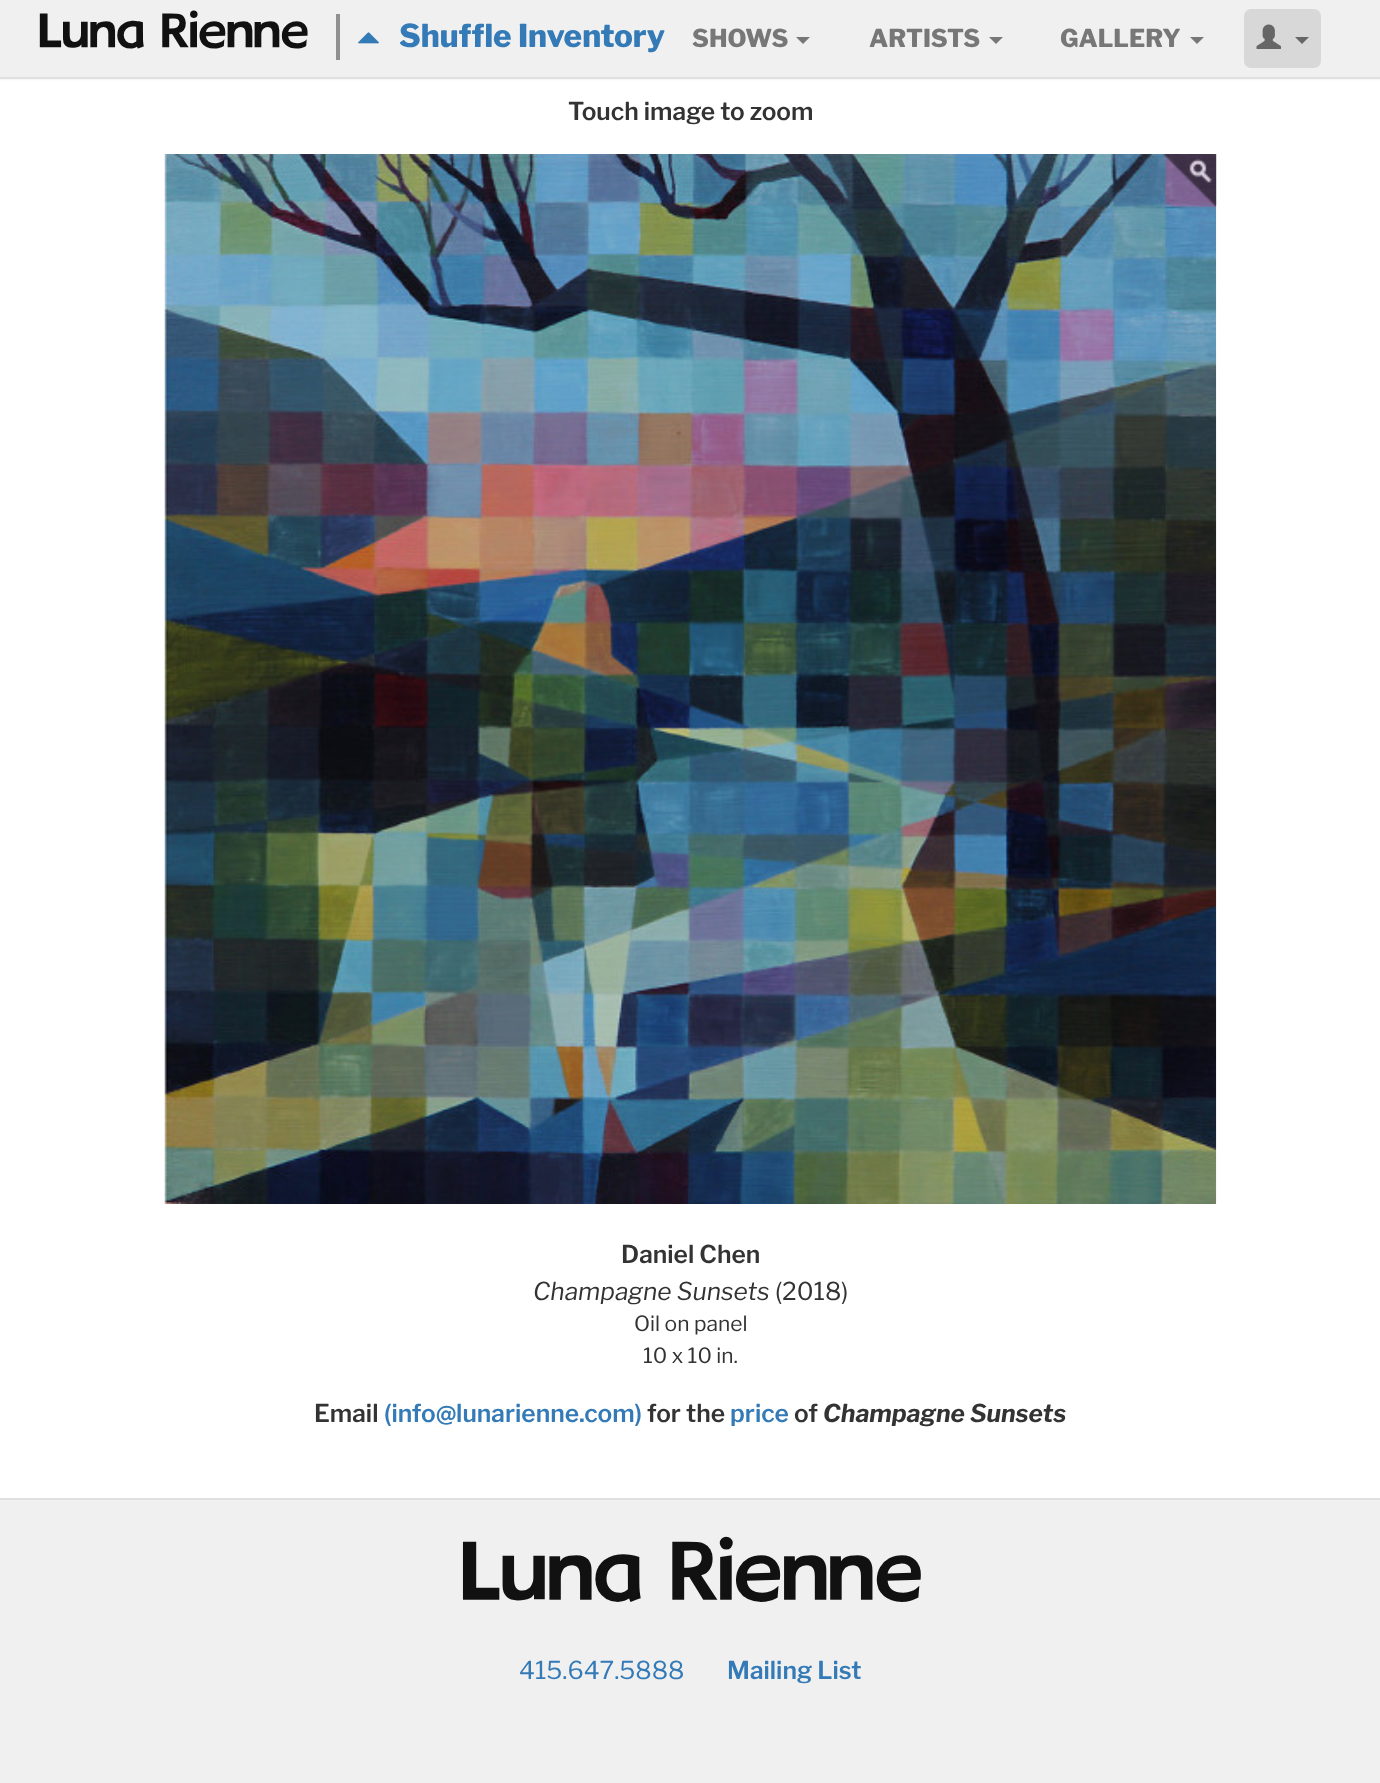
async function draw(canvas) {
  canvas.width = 1380
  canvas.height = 1783
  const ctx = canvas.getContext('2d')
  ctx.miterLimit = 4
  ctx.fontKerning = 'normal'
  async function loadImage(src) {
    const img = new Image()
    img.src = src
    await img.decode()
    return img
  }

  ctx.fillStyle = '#fff'
  ctx.fillRect(0, 0, 1380, 1783)
  ctx.fillStyle = '#0000001a'
  ctx.filter = 'blur(1px)'
  ctx.beginPath()
  ctx.rect(0, 0, 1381, 79)
  ctx.fill()
  ctx.filter = 'none'
  ctx.fillStyle = '#f0f0f0'
  ctx.fillRect(0, 0, 1380, 77)
  ctx.fillStyle = '#e0e0e0'
  ctx.fillRect(0, 77, 1380, 2)
  ctx.font = '40.5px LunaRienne'
  ctx.fillStyle = '#111'
  ctx.fillText('@', 34, 44)
  ctx.fillStyle = '#909090'
  ctx.fillRect(336, 14, 4, 46)
  ctx.drawImage(await loadImage('image0.png'), 358, 32, 21, 12)
  ctx.font = '100 31.5px "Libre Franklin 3"'
  ctx.fillStyle = '#337ab7'
  ctx.fillText('Shuffle Inventory', 399, 47)
  ctx.font = '100 24.5px "Libre Franklin 3"'
  ctx.fillStyle = '#777'
  ctx.fillText('SHOWS', 692, 47)
  ctx.beginPath()
  ctx.moveTo(796, 37)
  ctx.lineTo(810, 37)
  ctx.lineTo(803, 44)
  ctx.closePath()
  ctx.fill()
  ctx.fillText('ARTISTS', 869, 47)
  ctx.beginPath()
  ctx.moveTo(989, 37)
  ctx.lineTo(1003, 37)
  ctx.lineTo(996, 44)
  ctx.closePath()
  ctx.fill()
  ctx.fillText('GALLERY', 1060, 47)
  ctx.beginPath()
  ctx.moveTo(1190, 37)
  ctx.lineTo(1204, 37)
  ctx.lineTo(1197, 44)
  ctx.closePath()
  ctx.fill()
  ctx.fillStyle = '#d8d8d8'
  ctx.beginPath()
  ctx.roundRect(1244, 9, 77, 59, 7)
  ctx.fill()
  ctx.drawImage(await loadImage('image1.png'), 1256, 24, 25, 25)
  ctx.fillStyle = '#666'
  ctx.beginPath()
  ctx.moveTo(1295, 37)
  ctx.lineTo(1309, 37)
  ctx.lineTo(1302, 44)
  ctx.closePath()
  ctx.fill()
  ctx.font = '100 24.5px Libre Franklin'
  ctx.fillStyle = '#333'
  ctx.fillText('Touch image to zoom', 568, 120)
  ctx.drawImage(await loadImage('image2.png'), 164, 154, 1053, 1050)
  ctx.drawImage(await loadImage('image3.png'), 1163, 154, 54, 53)
  ctx.fillText('Daniel Chen', 621, 1263)
  ctx.font = 'italic 100 24.5px Libre Franklin'
  ctx.fillText('Champagne Sunsets', 533, 1300)
  ctx.font = '100 24.5px "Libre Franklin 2"'
  ctx.fillText('(2018)', 775, 1300)
  ctx.font = '100 21px "Libre Franklin 2"'
  ctx.fillText('Oil on panel', 634, 1331)
  ctx.fillText('10 x 10 in.', 643, 1363)
  ctx.font = '100 24.5px Libre Franklin'
  ctx.fillText('Email', 314, 1422)
  ctx.fillStyle = '#337ab7'
  ctx.fillText('(info@lunarienne.com)', 384, 1422)
  ctx.fillStyle = '#333'
  ctx.fillText('for the', 647, 1422)
  ctx.fillStyle = '#337ab7'
  ctx.fillText('price', 730, 1422)
  ctx.fillStyle = '#333'
  ctx.fillText('of', 794, 1422)
  ctx.font = 'italic 100 24.5px "Libre Franklin 2"'
  ctx.fillText('Champagne Sunsets', 823, 1422)
  ctx.fillStyle = '#f0f0f0'
  ctx.fillRect(0, 1500, 1380, 283)
  ctx.fillStyle = '#e0e0e0'
  ctx.fillRect(0, 1498, 1380, 2)
  ctx.font = '69.25px LunaRienne'
  ctx.fillStyle = '#111'
  ctx.fillText('@', 453, 1594)
  ctx.font = '100 24.5px "Libre Franklin 2"'
  ctx.fillStyle = '#337ab7'
  ctx.fillText('415.647.5888', 519, 1679)
  ctx.font = '100 24.5px Libre Franklin'
  ctx.fillText('Mailing List', 727, 1679)
}

draw(document.querySelector('canvas'))
